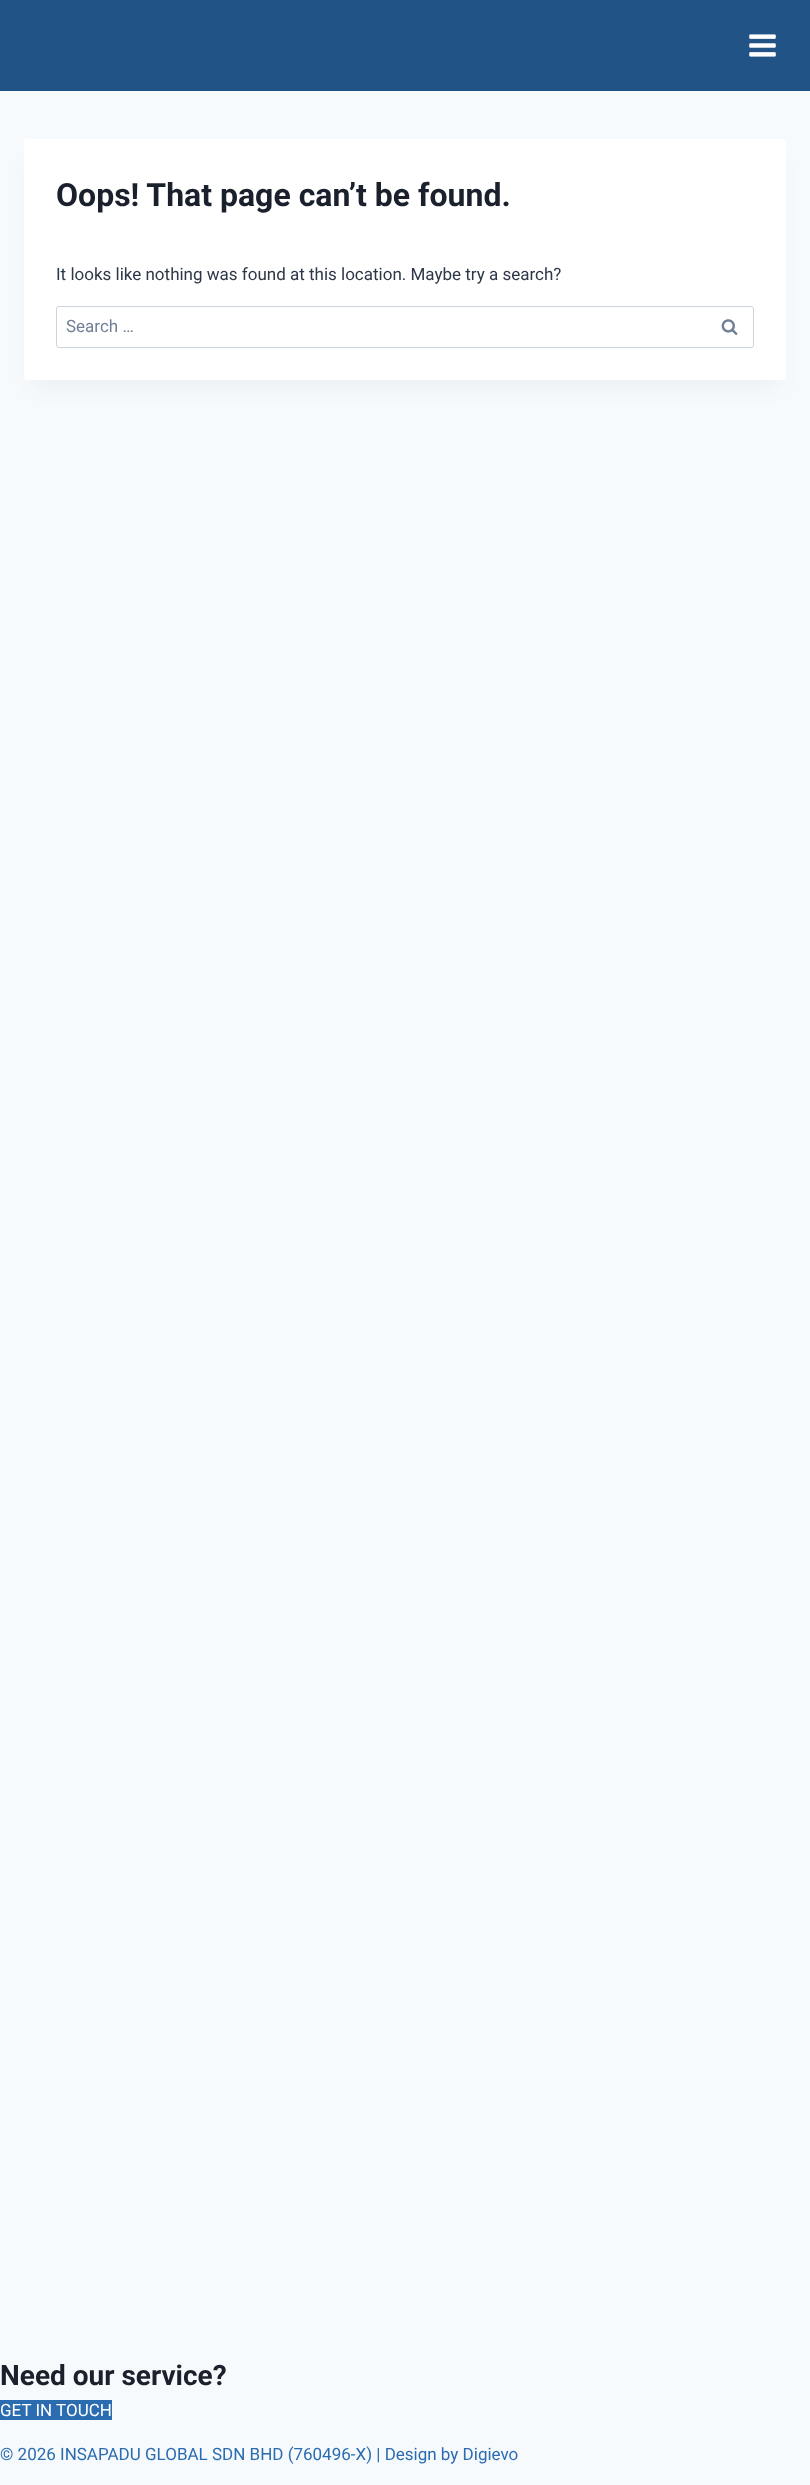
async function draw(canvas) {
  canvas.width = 810
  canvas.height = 2485
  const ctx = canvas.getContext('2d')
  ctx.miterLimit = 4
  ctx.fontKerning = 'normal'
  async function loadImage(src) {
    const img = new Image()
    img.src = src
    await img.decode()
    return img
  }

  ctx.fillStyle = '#f7fafc'
  ctx.fillRect(0, 0, 810, 2485)
  ctx.fillStyle = '#215387'
  ctx.fillRect(0, 0, 810, 91)
  ctx.drawImage(await loadImage('image0.png'), 749, 34, 27, 23)
  ctx.fillStyle = '#0000000d'
  ctx.filter = 'blur(12.5px)'
  ctx.beginPath()
  ctx.rect(34, 164, 742, 221)
  ctx.fill()
  ctx.filter = 'none'
  ctx.fillStyle = '#fff'
  ctx.beginPath()
  ctx.roundRect(24, 139, 762, 241, 4)
  ctx.fill()
  ctx.font = 'bold 32px Roboto'
  ctx.fillStyle = '#1a202c'
  ctx.fillText('Oops! That page can’t be found.', 56, 206)
  ctx.font = '17px Roboto'
  ctx.fillStyle = '#2d3748'
  ctx.fillText('It looks like nothing was found at this location. Maybe try a search?', 56, 280)
  ctx.beginPath()
  ctx.roundRect(56.5, 306.5, 697, 41, 2.5)
  ctx.strokeStyle = '#cbd5e0'
  ctx.stroke()
  ctx.fillStyle = '#718096'
  ctx.fillText('Search …', 66, 332)
  ctx.drawImage(await loadImage('image1.png'), 721, 319, 17, 16)
  ctx.font = 'bold 28px Roboto'
  ctx.fillStyle = '#1a202c'
  ctx.fillText('Need our service?', 0, 2385)
  ctx.fillStyle = '#2b6cb0'
  ctx.fillRect(0, 2400, 112, 20)
  ctx.font = '17px Roboto'
  ctx.fillStyle = '#fff'
  ctx.fillText('GET IN TOUCH', 0, 2416)
  ctx.fillStyle = '#2b6cb0'
  ctx.fillText('© 2026 INSAPADU GLOBAL SDN BHD (760496-X) | Design by Digievo', 0, 2460)
}

draw(document.querySelector('canvas'))
